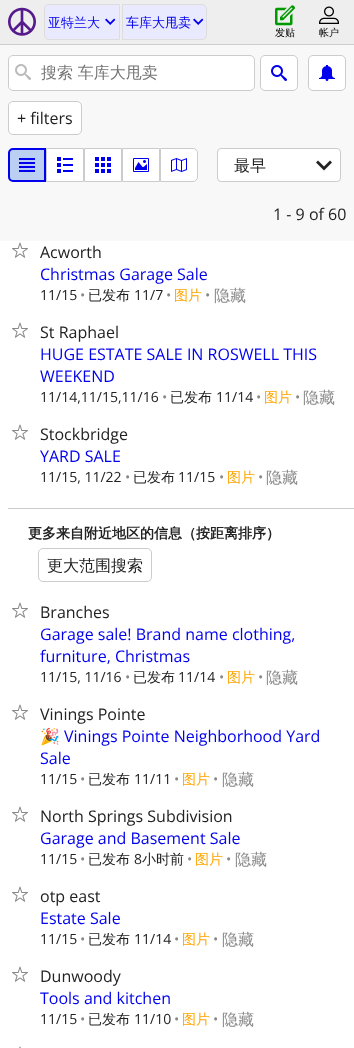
async function draw(canvas) {
  canvas.width = 354
  canvas.height = 1048
  const ctx = canvas.getContext('2d')
  ctx.miterLimit = 4
  ctx.fontKerning = 'normal'
  async function loadImage(src) {
    const img = new Image()
    img.src = src
    await img.decode()
    return img
  }

  ctx.fillStyle = '#fff'
  ctx.fillRect(0, 0, 354, 1048)
  ctx.fillStyle = '#eee'
  ctx.fillRect(0, 0, 354, 44)
  ctx.fillStyle = '#ccc'
  ctx.fillRect(0, 44, 354, 1)
  ctx.drawImage(await loadImage('image0.png'), 8, 7, 28, 29)
  ctx.fillStyle = '#eaeaff'
  ctx.beginPath()
  ctx.roundRect(44.5, 4.5, 75, 35, [4.5, 0, 0, 4.5])
  ctx.fill()
  ctx.strokeStyle = '#ddd'
  ctx.stroke()
  ctx.font = '500 13px WenQuanYi Zen Hei'
  ctx.fillStyle = '#00e'
  ctx.fillText('亚特兰大', 48, 27)
  ctx.drawImage(await loadImage('image1.png'), 105, 18, 11, 7)
  ctx.fillStyle = '#eaeaff'
  ctx.beginPath()
  ctx.roundRect(122.5, 4.5, 84, 35, [0, 4.5, 4.5, 0])
  ctx.fill()
  ctx.stroke()
  ctx.fillStyle = '#00e'
  ctx.fillText('车库大甩卖', 126, 27)
  ctx.drawImage(await loadImage('image1.png'), 193, 18, 11, 7)
  ctx.drawImage(await loadImage('image2.png'), 275, 5, 20, 21)
  ctx.font = '500 10px WenQuanYi Zen Hei'
  ctx.fillStyle = '#000'
  ctx.fillText('发贴', 275, 36)
  ctx.drawImage(await loadImage('image3.png'), 319, 6, 20, 18)
  ctx.fillText('帐户', 319, 36)
  ctx.fillStyle = '#f8f8f8'
  ctx.fillRect(0, 45, 354, 196)
  ctx.fillStyle = '#fff'
  ctx.beginPath()
  ctx.roundRect(8.5, 55.5, 246, 35, 4.5)
  ctx.fill()
  ctx.strokeStyle = '#ccc'
  ctx.stroke()
  ctx.drawImage(await loadImage('image4.png'), 15, 64, 16, 16)
  ctx.font = '500 16px WenQuanYi Zen Hei'
  ctx.fillStyle = '#757575'
  ctx.fillText('搜索 车库大甩卖', 41, 78)
  ctx.fillStyle = '#fff'
  ctx.beginPath()
  ctx.roundRect(260.5, 55.5, 37, 35, 4.5)
  ctx.fill()
  ctx.stroke()
  ctx.drawImage(await loadImage('image5.png'), 271, 65, 16, 16)
  ctx.beginPath()
  ctx.roundRect(308.5, 55.5, 37, 35, 4.5)
  ctx.fill()
  ctx.stroke()
  ctx.drawImage(await loadImage('image6.png'), 319, 65, 16, 16)
  ctx.beginPath()
  ctx.roundRect(8.5, 101.5, 73, 33, 4.5)
  ctx.fill()
  ctx.stroke()
  ctx.font = '16px Open Sans'
  ctx.fillStyle = '#222'
  ctx.fillText('+ filters', 17, 124)
  ctx.fillStyle = '#bacff2'
  ctx.beginPath()
  ctx.roundRect(9, 149, 36, 32, [4, 0, 0, 4])
  ctx.fill()
  ctx.strokeStyle = '#00e'
  ctx.lineWidth = 2
  ctx.stroke()
  ctx.drawImage(await loadImage('image7.png'), 19, 158, 16, 14)
  ctx.fillStyle = '#fff'
  ctx.beginPath()
  ctx.rect(46.5, 148.5, 37, 33)
  ctx.fill()
  ctx.strokeStyle = '#ccc'
  ctx.lineWidth = 1
  ctx.stroke()
  ctx.drawImage(await loadImage('image8.png'), 57, 157, 16, 16)
  ctx.beginPath()
  ctx.rect(84.5, 148.5, 37, 33)
  ctx.fill()
  ctx.stroke()
  ctx.drawImage(await loadImage('image9.png'), 95, 157, 16, 16)
  ctx.beginPath()
  ctx.rect(122.5, 148.5, 37, 33)
  ctx.fill()
  ctx.stroke()
  ctx.drawImage(await loadImage('image10.png'), 133, 158, 16, 14)
  ctx.beginPath()
  ctx.roundRect(160.5, 148.5, 37, 33, [0, 4.5, 4.5, 0])
  ctx.fill()
  ctx.stroke()
  ctx.drawImage(await loadImage('image11.png'), 171, 158, 16, 14)
  ctx.beginPath()
  ctx.roundRect(217.5, 148.5, 123, 33, 3.5)
  ctx.fill()
  ctx.stroke()
  ctx.font = '500 16px WenQuanYi Zen Hei'
  ctx.fillStyle = '#222'
  ctx.fillText('最早', 234, 171)
  ctx.drawImage(await loadImage('image12.png'), 316, 160, 16, 11)
  ctx.font = '16px Open Sans'
  ctx.fillText('1 - 9 of 60', 273, 220)
  ctx.drawImage(await loadImage('image13.png'), 12, 242, 16, 16)
  ctx.fillText('Acworth', 40, 258)
  ctx.fillStyle = '#00e'
  ctx.fillText('Christmas Garage Sale', 40, 280)
  ctx.font = '14px Open Sans'
  ctx.fillStyle = '#222'
  ctx.fillText('11/15', 40, 300)
  ctx.fillStyle = '#888'
  ctx.fillText('•', 80, 300)
  ctx.font = '500 14px WenQuanYi Zen Hei'
  ctx.fillStyle = '#222'
  ctx.fillText('已发布', 88, 300)
  ctx.font = '14px Open Sans'
  ctx.fillText('11/7', 134, 300)
  ctx.fillStyle = '#888'
  ctx.fillText('•', 166, 300)
  ctx.font = '500 14px WenQuanYi Zen Hei'
  ctx.fillStyle = '#ffa500'
  ctx.fillText('图片', 174, 300)
  ctx.font = '14px Open Sans'
  ctx.fillStyle = '#888'
  ctx.fillText('•', 205, 300)
  ctx.font = '500 16px WenQuanYi Zen Hei'
  ctx.fillText('隐藏', 214, 301)
  ctx.drawImage(await loadImage('image13.png'), 12, 322, 16, 16)
  ctx.font = '16px Open Sans'
  ctx.fillStyle = '#222'
  ctx.fillText('St Raphael', 40, 338)
  ctx.fillStyle = '#00e'
  ctx.fillText('HUGE ESTATE SALE IN ROSWELL THIS', 40, 360)
  ctx.fillText('WEEKEND', 40, 382)
  ctx.font = '14px Open Sans'
  ctx.fillStyle = '#222'
  ctx.fillText('11/14,11/15,11/16', 40, 402)
  ctx.fillStyle = '#888'
  ctx.fillText('•', 162, 402)
  ctx.font = '500 14px WenQuanYi Zen Hei'
  ctx.fillStyle = '#222'
  ctx.fillText('已发布', 170, 402)
  ctx.font = '14px Open Sans'
  ctx.fillText('11/14', 216, 402)
  ctx.fillStyle = '#888'
  ctx.fillText('•', 256, 402)
  ctx.font = '500 14px WenQuanYi Zen Hei'
  ctx.fillStyle = '#ffa500'
  ctx.fillText('图片', 264, 402)
  ctx.font = '14px Open Sans'
  ctx.fillStyle = '#888'
  ctx.fillText('•', 295, 402)
  ctx.font = '500 16px WenQuanYi Zen Hei'
  ctx.fillText('隐藏', 303, 403)
  ctx.drawImage(await loadImage('image13.png'), 12, 424, 16, 16)
  ctx.font = '16px Open Sans'
  ctx.fillStyle = '#222'
  ctx.fillText('Stockbridge', 40, 440)
  ctx.fillStyle = '#00e'
  ctx.fillText('YARD SALE', 40, 462)
  ctx.font = '14px Open Sans'
  ctx.fillStyle = '#222'
  ctx.fillText('11/15, 11/22', 40, 482)
  ctx.fillStyle = '#888'
  ctx.fillText('•', 125, 482)
  ctx.font = '500 14px WenQuanYi Zen Hei'
  ctx.fillStyle = '#222'
  ctx.fillText('已发布', 133, 482)
  ctx.font = '14px Open Sans'
  ctx.fillText('11/15', 178, 482)
  ctx.fillStyle = '#888'
  ctx.fillText('•', 219, 482)
  ctx.font = '500 14px WenQuanYi Zen Hei'
  ctx.fillStyle = '#ffa500'
  ctx.fillText('图片', 227, 482)
  ctx.font = '14px Open Sans'
  ctx.fillStyle = '#888'
  ctx.fillText('•', 258, 482)
  ctx.font = '500 16px WenQuanYi Zen Hei'
  ctx.fillText('隐藏', 266, 483)
  ctx.fillStyle = '#ccc'
  ctx.fillRect(8, 508, 346, 1)
  ctx.font = 'bold 14px WenQuanYi Zen Hei'
  ctx.fillStyle = '#222'
  ctx.fillText('更多来自附近地区的信息（按距离排序）', 28, 538)
  ctx.beginPath()
  ctx.roundRect(38.5, 548.5, 113, 33, 4.5)
  ctx.stroke()
  ctx.font = '500 16px WenQuanYi Zen Hei'
  ctx.fillText('更大范围搜索', 47, 571)
  ctx.drawImage(await loadImage('image13.png'), 12, 602, 16, 16)
  ctx.font = '16px Open Sans'
  ctx.fillText('Branches', 40, 618)
  ctx.fillStyle = '#00e'
  ctx.fillText('Garage sale! Brand name clothing,', 40, 640)
  ctx.fillText('furniture, Christmas', 40, 662)
  ctx.font = '14px Open Sans'
  ctx.fillStyle = '#222'
  ctx.fillText('11/15, 11/16', 40, 682)
  ctx.fillStyle = '#888'
  ctx.fillText('•', 125, 682)
  ctx.font = '500 14px WenQuanYi Zen Hei'
  ctx.fillStyle = '#222'
  ctx.fillText('已发布', 133, 682)
  ctx.font = '14px Open Sans'
  ctx.fillText('11/14', 178, 682)
  ctx.fillStyle = '#888'
  ctx.fillText('•', 219, 682)
  ctx.font = '500 14px WenQuanYi Zen Hei'
  ctx.fillStyle = '#ffa500'
  ctx.fillText('图片', 227, 682)
  ctx.font = '14px Open Sans'
  ctx.fillStyle = '#888'
  ctx.fillText('•', 258, 682)
  ctx.font = '500 16px WenQuanYi Zen Hei'
  ctx.fillText('隐藏', 266, 683)
  ctx.drawImage(await loadImage('image13.png'), 12, 704, 16, 16)
  ctx.font = '16px Open Sans'
  ctx.fillStyle = '#222'
  ctx.fillText('Vinings Pointe', 40, 720)
  ctx.font = '16px Noto Color Emoji'
  ctx.fillStyle = '#00e'
  ctx.fillText('🎉', 40, 742)
  ctx.font = '16px Open Sans'
  ctx.fillText('Vinings Pointe Neighborhood Yard', 64, 742)
  ctx.fillText('Sale', 40, 764)
  ctx.font = '14px Open Sans'
  ctx.fillStyle = '#222'
  ctx.fillText('11/15', 40, 784)
  ctx.fillStyle = '#888'
  ctx.fillText('•', 80, 784)
  ctx.font = '500 14px WenQuanYi Zen Hei'
  ctx.fillStyle = '#222'
  ctx.fillText('已发布', 88, 784)
  ctx.font = '14px Open Sans'
  ctx.fillText('11/11', 134, 784)
  ctx.fillStyle = '#888'
  ctx.fillText('•', 174, 784)
  ctx.font = '500 14px WenQuanYi Zen Hei'
  ctx.fillStyle = '#ffa500'
  ctx.fillText('图片', 182, 784)
  ctx.font = '14px Open Sans'
  ctx.fillStyle = '#888'
  ctx.fillText('•', 213, 784)
  ctx.font = '500 16px WenQuanYi Zen Hei'
  ctx.fillText('隐藏', 222, 785)
  ctx.drawImage(await loadImage('image13.png'), 12, 806, 16, 16)
  ctx.font = '16px Open Sans'
  ctx.fillStyle = '#222'
  ctx.fillText('North Springs Subdivision', 40, 822)
  ctx.fillStyle = '#00e'
  ctx.fillText('Garage and Basement Sale', 40, 844)
  ctx.font = '14px Open Sans'
  ctx.fillStyle = '#222'
  ctx.fillText('11/15', 40, 864)
  ctx.fillStyle = '#888'
  ctx.fillText('•', 80, 864)
  ctx.font = '500 14px WenQuanYi Zen Hei'
  ctx.fillStyle = '#222'
  ctx.fillText('已发布', 88, 864)
  ctx.font = '14px Open Sans'
  ctx.fillText('8', 134, 864)
  ctx.font = '500 14px WenQuanYi Zen Hei'
  ctx.fillText('小时前', 142, 864)
  ctx.font = '14px Open Sans'
  ctx.fillStyle = '#888'
  ctx.fillText('•', 187, 864)
  ctx.font = '500 14px WenQuanYi Zen Hei'
  ctx.fillStyle = '#ffa500'
  ctx.fillText('图片', 195, 864)
  ctx.font = '14px Open Sans'
  ctx.fillStyle = '#888'
  ctx.fillText('•', 226, 864)
  ctx.font = '500 16px WenQuanYi Zen Hei'
  ctx.fillText('隐藏', 235, 865)
  ctx.drawImage(await loadImage('image13.png'), 12, 886, 16, 16)
  ctx.font = '16px Open Sans'
  ctx.fillStyle = '#222'
  ctx.fillText('otp east', 40, 902)
  ctx.fillStyle = '#00e'
  ctx.fillText('Estate Sale', 40, 924)
  ctx.font = '14px Open Sans'
  ctx.fillStyle = '#222'
  ctx.fillText('11/15', 40, 944)
  ctx.fillStyle = '#888'
  ctx.fillText('•', 80, 944)
  ctx.font = '500 14px WenQuanYi Zen Hei'
  ctx.fillStyle = '#222'
  ctx.fillText('已发布', 88, 944)
  ctx.font = '14px Open Sans'
  ctx.fillText('11/14', 134, 944)
  ctx.fillStyle = '#888'
  ctx.fillText('•', 174, 944)
  ctx.font = '500 14px WenQuanYi Zen Hei'
  ctx.fillStyle = '#ffa500'
  ctx.fillText('图片', 182, 944)
  ctx.font = '14px Open Sans'
  ctx.fillStyle = '#888'
  ctx.fillText('•', 213, 944)
  ctx.font = '500 16px WenQuanYi Zen Hei'
  ctx.fillText('隐藏', 222, 945)
  ctx.drawImage(await loadImage('image13.png'), 12, 966, 16, 16)
  ctx.font = '16px Open Sans'
  ctx.fillStyle = '#222'
  ctx.fillText('Dunwoody', 40, 982)
  ctx.fillStyle = '#00e'
  ctx.fillText('Tools and kitchen', 40, 1004)
  ctx.font = '14px Open Sans'
  ctx.fillStyle = '#222'
  ctx.fillText('11/15', 40, 1024)
  ctx.fillStyle = '#888'
  ctx.fillText('•', 80, 1024)
  ctx.font = '500 14px WenQuanYi Zen Hei'
  ctx.fillStyle = '#222'
  ctx.fillText('已发布', 88, 1024)
  ctx.font = '14px Open Sans'
  ctx.fillText('11/10', 134, 1024)
  ctx.fillStyle = '#888'
  ctx.fillText('•', 174, 1024)
  ctx.font = '500 14px WenQuanYi Zen Hei'
  ctx.fillStyle = '#ffa500'
  ctx.fillText('图片', 182, 1024)
  ctx.font = '14px Open Sans'
  ctx.fillStyle = '#888'
  ctx.fillText('•', 213, 1024)
  ctx.font = '500 16px WenQuanYi Zen Hei'
  ctx.fillText('隐藏', 222, 1025)
  ctx.drawImage(await loadImage('image14.png'), 19, 1046, 2, 2)
}

draw(document.querySelector('canvas'))
